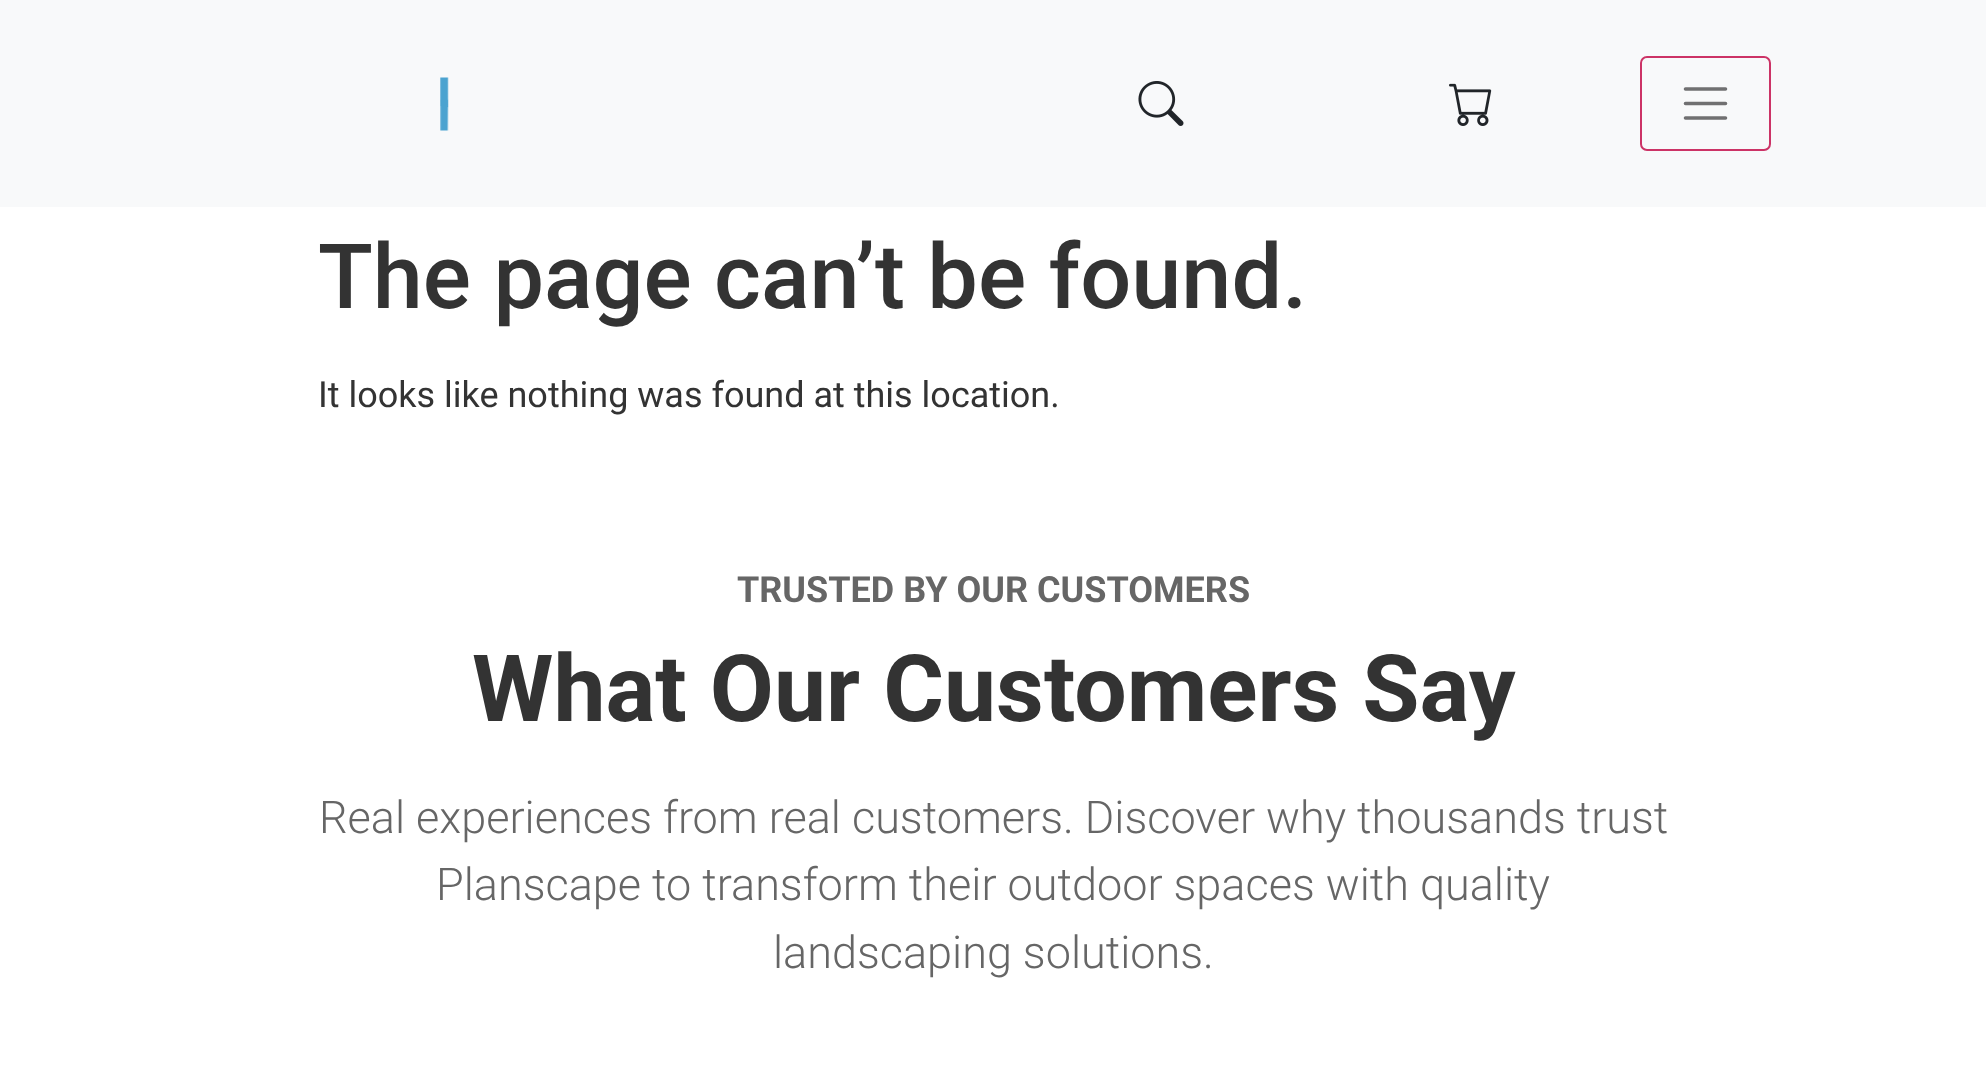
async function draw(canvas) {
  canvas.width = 1986
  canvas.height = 1088
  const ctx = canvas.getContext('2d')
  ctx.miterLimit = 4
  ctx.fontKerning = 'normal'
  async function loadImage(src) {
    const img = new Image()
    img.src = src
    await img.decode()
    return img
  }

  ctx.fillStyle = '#fff'
  ctx.fillRect(0, 0, 1986, 1088)
  ctx.fillStyle = '#f8f9fa'
  ctx.fillRect(0, 0, 1986, 207)
  ctx.drawImage(await loadImage('image0.png'), 440, 77, 9, 54)
  ctx.drawImage(await loadImage('image1.png'), 1138, 81, 46, 45)
  ctx.drawImage(await loadImage('image2.png'), 1449, 83, 43, 43)
  ctx.beginPath()
  ctx.roundRect(1641, 57, 129, 93, 6)
  ctx.strokeStyle = '#c36'
  ctx.lineWidth = 2
  ctx.stroke()
  ctx.beginPath()
  ctx.moveTo(1685.5, 89)
  ctx.lineTo(1725.5, 89)
  ctx.moveTo(1685.5, 103.5)
  ctx.lineTo(1725.5, 103.5)
  ctx.moveTo(1685.5, 118)
  ctx.lineTo(1725.5, 118)
  ctx.strokeStyle = '#707071'
  ctx.lineWidth = 3.6
  ctx.lineCap = 'round'
  ctx.stroke()
  ctx.font = '500 90px Roboto'
  ctx.fillStyle = '#333'
  ctx.fillText('The page can’t be found.', 318, 308)
  ctx.font = '36px Roboto'
  ctx.fillText('It looks like nothing was found at this location.', 318, 407)
  ctx.font = 'bold 36px Roboto'
  ctx.fillStyle = '#666'
  ctx.fillText('TRUSTED BY OUR CUSTOMERS', 737, 602)
  ctx.font = 'bold 93px Roboto'
  ctx.fillStyle = '#333'
  ctx.fillText('What Our Customers Say', 472, 721)
  ctx.font = '300 45px Roboto'
  ctx.fillStyle = '#666'
  ctx.fillText('Real experiences from real customers. Discover why thousands trust', 319, 833)
  ctx.fillText('Planscape to transform their outdoor spaces with quality', 436, 900)
  ctx.fillText('landscaping solutions.', 773, 968)
}

draw(document.querySelector('canvas'))
